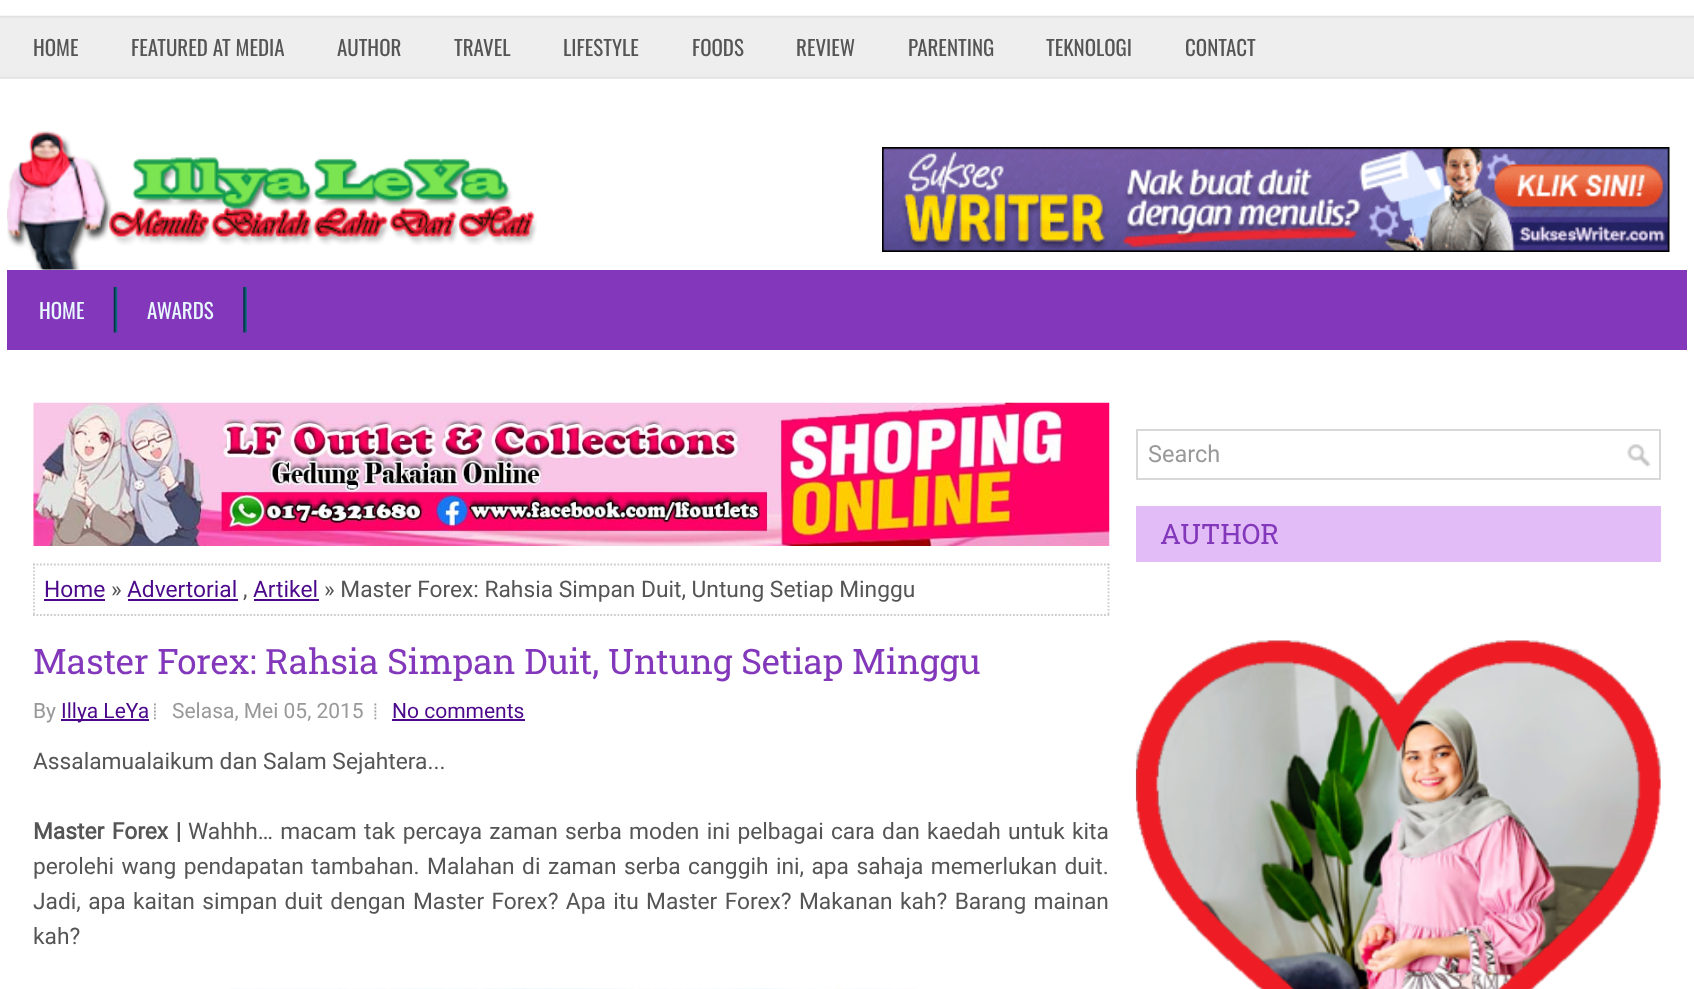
async function draw(canvas) {
  canvas.width = 1694
  canvas.height = 989
  const ctx = canvas.getContext('2d')
  ctx.miterLimit = 4
  ctx.fontKerning = 'normal'
  async function loadImage(src) {
    const img = new Image()
    img.src = src
    await img.decode()
    return img
  }

  ctx.fillStyle = '#fff'
  ctx.fillRect(0, 0, 1694, 989)
  ctx.drawImage(await loadImage('image0.png'), 0, 15, 1694, 64)
  ctx.font = '21px Oswald'
  ctx.fillStyle = '#555'
  ctx.fillText('HOME', 33, 56)
  ctx.fillText('FEATURED AT MEDIA', 131, 56)
  ctx.fillText('AUTHOR', 337, 56)
  ctx.fillText('TRAVEL', 454, 56)
  ctx.fillText('LIFESTYLE', 563, 56)
  ctx.fillText('FOODS', 692, 56)
  ctx.fillText('REVIEW', 796, 56)
  ctx.fillText('PARENTING', 908, 56)
  ctx.fillText('TEKNOLOGI', 1046, 56)
  ctx.fillText('CONTACT', 1185, 56)
  ctx.drawImage(await loadImage('image1.png'), 7, 131, 530, 139)
  ctx.drawImage(await loadImage('image2.png'), 882, 147, 788, 105)
  ctx.fillStyle = '#8338bb'
  ctx.fillRect(7, 270, 1680, 80)
  ctx.drawImage(await loadImage('image3.png'), 113, 287, 5, 46)
  ctx.fillStyle = '#e9f8ff'
  ctx.fillText('HOME', 39, 319)
  ctx.drawImage(await loadImage('image4.png'), 243, 287, 4, 46)
  ctx.fillText('AWARDS', 147, 319)
  ctx.drawImage(await loadImage('image5.png'), 1627, 444, 24, 24)
  ctx.strokeStyle = '#d8d8d8'
  ctx.lineWidth = 2
  ctx.strokeRect(1137, 430, 523, 49)
  ctx.font = '23.5px Roboto'
  ctx.fillStyle = '#999'
  ctx.fillText('Search', 1148, 462)
  ctx.fillStyle = '#e2bcf6'
  ctx.fillRect(1136, 506, 525, 56)
  ctx.font = '28px Roboto Slab'
  ctx.fillStyle = '#8338bb'
  ctx.fillText('AUTHOR', 1160, 544)
  ctx.drawImage(await loadImage('image6.png'), 1135, 640, 526, 349)
  ctx.drawImage(await loadImage('image7.png'), 33, 402, 1077, 144)
  ctx.beginPath()
  ctx.moveTo(33, 564.5)
  ctx.lineTo(1109.5, 564.5)
  ctx.strokeStyle = '#ccc'
  ctx.lineWidth = 1.8
  ctx.setLineDash([1.75, 1.75])
  ctx.stroke()
  ctx.beginPath()
  ctx.moveTo(1108.5, 563.5)
  ctx.lineTo(1108.5, 616)
  ctx.stroke()
  ctx.beginPath()
  ctx.moveTo(33, 615)
  ctx.lineTo(1109.5, 615)
  ctx.stroke()
  ctx.beginPath()
  ctx.moveTo(34, 563.5)
  ctx.lineTo(34, 616)
  ctx.stroke()
  ctx.font = '22.75px Roboto'
  ctx.fillStyle = '#4b088a'
  ctx.fillText('Home', 44, 597)
  ctx.fillRect(44, 599, 61, 2)
  ctx.fillStyle = '#555'
  ctx.fillText('»', 111, 597)
  ctx.fillStyle = '#4b088a'
  ctx.fillText('Advertorial', 127, 597)
  ctx.fillRect(128, 599, 110, 2)
  ctx.fillText('Artikel', 253, 597)
  ctx.fillRect(254, 599, 65, 2)
  ctx.fillStyle = '#555'
  ctx.fillText('» Master Forex: Rahsia Simpan Duit, Untung Setiap Minggu', 324, 597)
  ctx.fillText(',', 243, 597)
  ctx.font = '35px Roboto Slab'
  ctx.fillStyle = '#8338bb'
  ctx.fillText('Master Forex: Rahsia Simpan Duit, Untung Setiap Minggu', 33, 674)
  ctx.font = '21px Roboto'
  ctx.fillStyle = '#999'
  ctx.fillText('By', 33, 718)
  ctx.fillStyle = '#4b088a'
  ctx.fillRect(61, 719, 88, 2)
  ctx.fillText('Illya LeYa', 61, 718)
  ctx.drawImage(await loadImage('image8.png'), 154, 703, 2, 17)
  ctx.fillStyle = '#999'
  ctx.fillText('Selasa, Mei 05, 2015', 172, 718)
  ctx.drawImage(await loadImage('image9.png'), 374, 703, 3, 17)
  ctx.fillStyle = '#4b088a'
  ctx.fillText('No comments', 392, 718)
  ctx.fillRect(392, 719, 133, 2)
  ctx.font = '22.75px Roboto'
  ctx.fillStyle = '#555'
  ctx.fillText('Assalamualaikum dan Salam Sejahtera...', 33, 769)
  ctx.wordSpacing = '2px'
  ctx.font = 'bold 22.75px Roboto'
  ctx.fillText('Master Forex |', 33, 839)
  ctx.wordSpacing = '1.6px'
  ctx.font = '22.75px Roboto'
  ctx.fillText('Wahhh… macam tak percaya zaman serba moden ini pelbagai cara dan kaedah untuk kita', 188, 839)
  ctx.wordSpacing = '1.8px'
  ctx.fillText('perolehi wang pendapatan tambahan. Malahan di zaman serba canggih ini, apa sahaja memerlukan duit.', 33, 874)
  ctx.wordSpacing = '1.75px'
  ctx.fillText('Jadi, apa kaitan simpan duit dengan Master Forex? Apa itu Master Forex? Makanan kah? Barang mainan', 33, 909)
  ctx.wordSpacing = '0px'
  ctx.fillText('kah?', 33, 944)
  ctx.drawImage(await loadImage('image10.png'), 230, 988, 688, 1)
}

draw(document.querySelector('canvas'))
